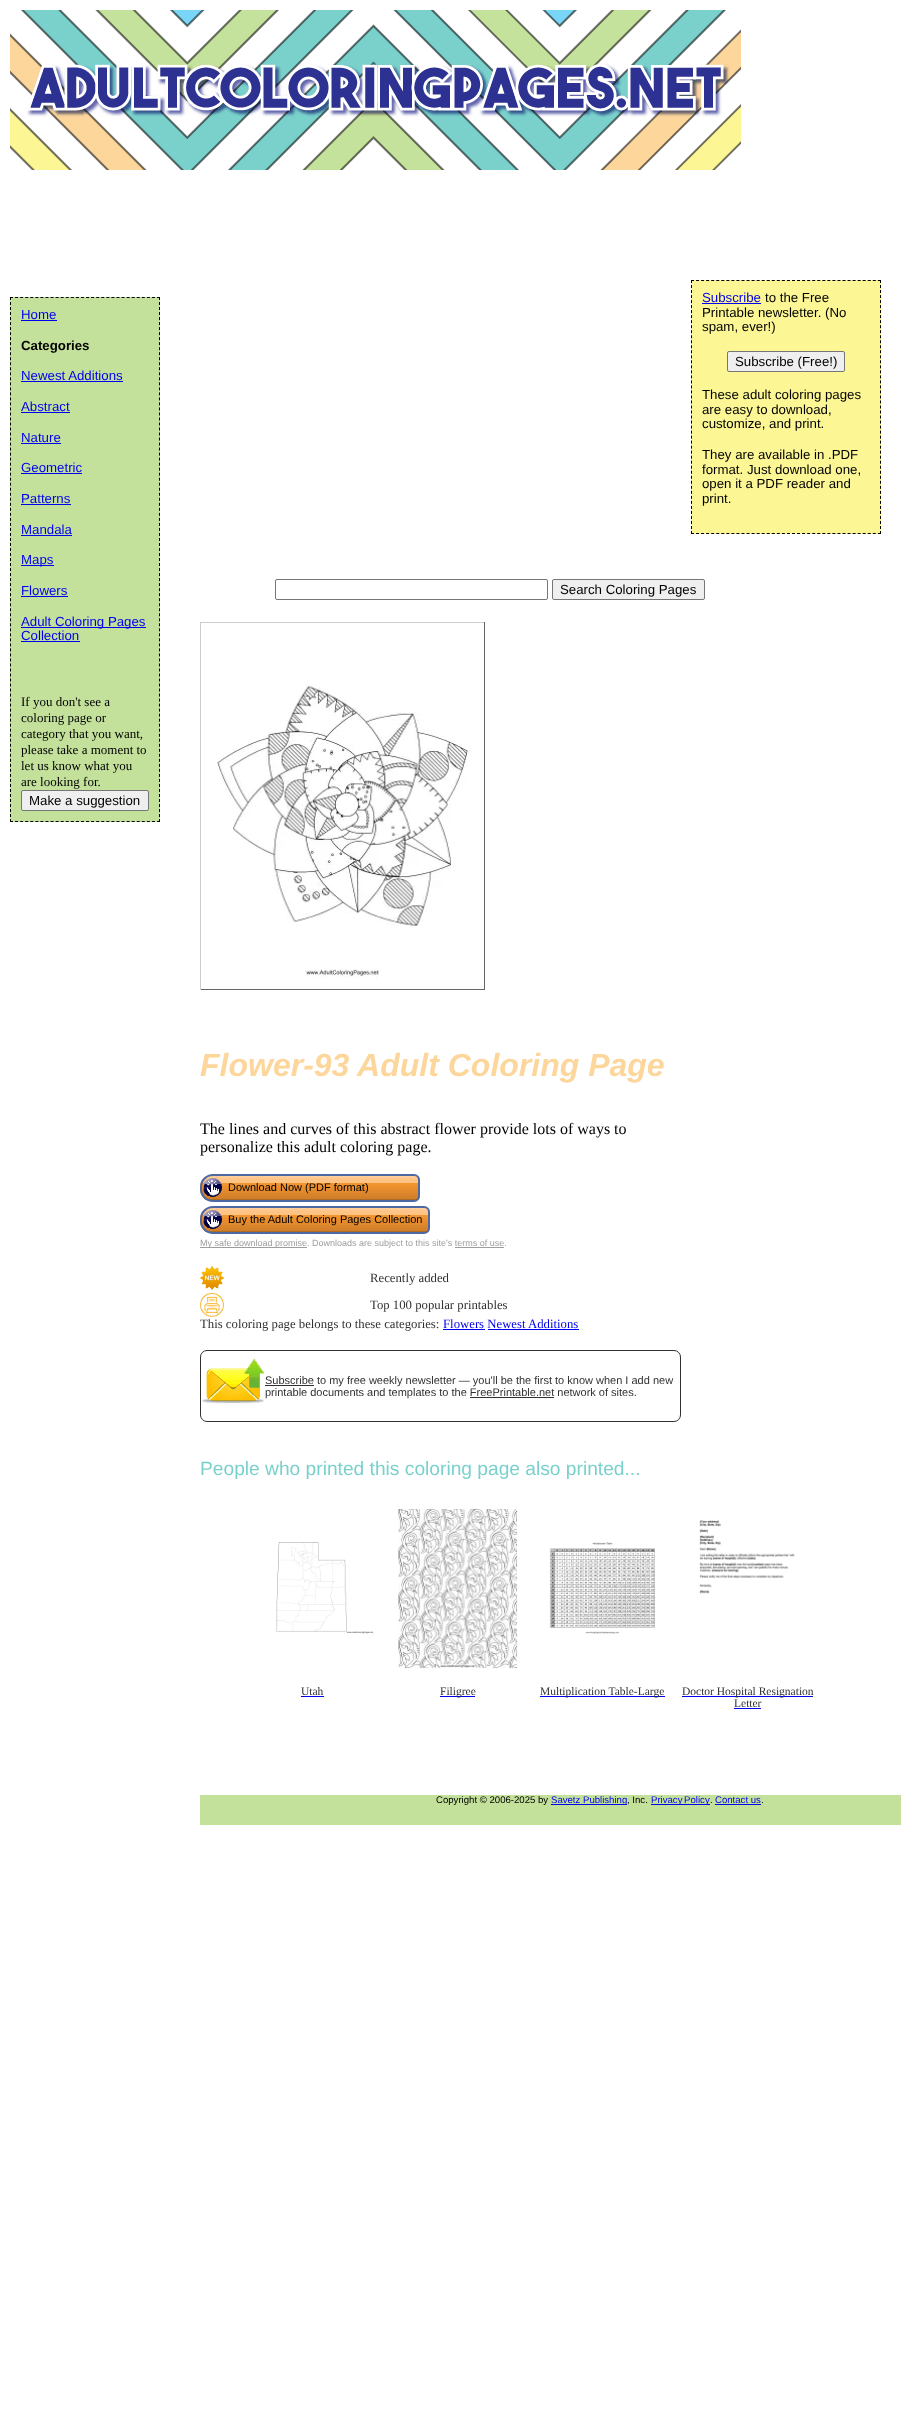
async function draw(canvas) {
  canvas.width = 901
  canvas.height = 2418
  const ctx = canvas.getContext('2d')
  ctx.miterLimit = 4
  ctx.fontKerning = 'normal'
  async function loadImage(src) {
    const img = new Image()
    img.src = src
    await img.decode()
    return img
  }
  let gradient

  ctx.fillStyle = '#fff'
  ctx.fillRect(0, 0, 901, 2418)
  ctx.fillStyle = '#c4e19b'
  ctx.fillRect(10, 297, 150, 525)
  ctx.beginPath()
  ctx.moveTo(10, 297.5)
  ctx.lineTo(160, 297.5)
  ctx.strokeStyle = '#000'
  ctx.setLineDash([3, 2.07])
  ctx.stroke()
  ctx.beginPath()
  ctx.moveTo(159.5, 297)
  ctx.lineTo(159.5, 822)
  ctx.setLineDash([3, 2.02])
  ctx.stroke()
  ctx.beginPath()
  ctx.moveTo(10, 821.5)
  ctx.lineTo(160, 821.5)
  ctx.setLineDash([3, 2.07])
  ctx.stroke()
  ctx.beginPath()
  ctx.moveTo(10.5, 297)
  ctx.lineTo(10.5, 822)
  ctx.setLineDash([3, 2.02])
  ctx.stroke()
  ctx.font = '13.25px Liberation Sans'
  ctx.fillStyle = '#00e'
  ctx.fillText('Home', 21, 319)
  ctx.fillRect(21, 320, 36, 1)
  ctx.font = 'bold 13.25px Liberation Sans'
  ctx.fillStyle = '#000'
  ctx.fillText('Categories', 21, 350)
  ctx.font = '13.25px Liberation Sans'
  ctx.fillStyle = '#00e'
  ctx.fillText('Newest Additions', 21, 380)
  ctx.fillRect(21, 381, 102, 1)
  ctx.fillText('Abstract', 21, 411)
  ctx.fillRect(21, 412, 49, 1)
  ctx.fillText('Nature', 21, 442)
  ctx.fillRect(21, 443, 40, 1)
  ctx.fillText('Geometric', 21, 472)
  ctx.fillRect(21, 473, 61, 1)
  ctx.fillText('Patterns', 21, 503)
  ctx.fillRect(21, 504, 50, 1)
  ctx.fillText('Mandala', 21, 534)
  ctx.fillRect(21, 535, 51, 1)
  ctx.fillRect(21, 565, 33, 1)
  ctx.fillText('Maps', 21, 564)
  ctx.fillText('Flowers', 21, 595)
  ctx.fillRect(21, 596, 47, 1)
  ctx.fillRect(21, 627, 125, 1)
  ctx.fillText('Adult Coloring Pages', 21, 626)
  ctx.fillText('Collection', 21, 640)
  ctx.fillRect(21, 641, 59, 1)
  ctx.font = '13px Liberation Serif'
  ctx.fillStyle = '#000'
  ctx.fillText('If you don\'t see a', 21, 706)
  ctx.fillText('coloring page or', 21, 722)
  ctx.fillText('category that you want,', 21, 738)
  ctx.fillText('please take a moment to', 21, 754)
  ctx.fillText('let us know what you', 21, 770)
  ctx.fillText('are looking for.', 21, 786)
  ctx.fillStyle = '#efefef'
  ctx.beginPath()
  ctx.roundRect(21.5, 790.5, 127, 20, 1.5)
  ctx.fill()
  ctx.strokeStyle = '#767676'
  ctx.setLineDash([])
  ctx.stroke()
  ctx.font = '13.25px Liberation Sans'
  ctx.fillStyle = '#000'
  ctx.fillText('Make a suggestion', 29, 805)
  ctx.drawImage(await loadImage('image0.png'), 10, 10, 731, 160)
  ctx.beginPath()
  ctx.roundRect(275.5, 579.5, 272, 20, 1.5)
  ctx.stroke()
  ctx.fillStyle = '#efefef'
  ctx.beginPath()
  ctx.roundRect(552.5, 579.5, 152, 20, 1.5)
  ctx.fill()
  ctx.stroke()
  ctx.fillStyle = '#000'
  ctx.fillText('Search Coloring Pages', 560, 594)
  ctx.fillStyle = '#fcf694'
  ctx.fillRect(691, 280, 190, 254)
  ctx.beginPath()
  ctx.moveTo(691, 280.5)
  ctx.lineTo(881, 280.5)
  ctx.strokeStyle = '#000'
  ctx.setLineDash([3, 2.05])
  ctx.stroke()
  ctx.beginPath()
  ctx.moveTo(880.5, 280)
  ctx.lineTo(880.5, 534)
  ctx.setLineDash([3, 2.02])
  ctx.stroke()
  ctx.beginPath()
  ctx.moveTo(691, 533.5)
  ctx.lineTo(881, 533.5)
  ctx.setLineDash([3, 2.05])
  ctx.stroke()
  ctx.beginPath()
  ctx.moveTo(691.5, 280)
  ctx.lineTo(691.5, 534)
  ctx.setLineDash([3, 2.02])
  ctx.stroke()
  ctx.fillStyle = '#00e'
  ctx.fillText('Subscribe', 702, 302)
  ctx.fillRect(702, 303, 59, 1)
  ctx.fillStyle = '#000'
  ctx.fillText('to the Free', 765, 302)
  ctx.fillText('Printable newsletter. (No', 702, 317)
  ctx.fillText('spam, ever!)', 702, 331)
  ctx.fillStyle = '#efefef'
  ctx.beginPath()
  ctx.roundRect(727.5, 351.5, 117, 20, 1.5)
  ctx.fill()
  ctx.strokeStyle = '#767676'
  ctx.setLineDash([])
  ctx.stroke()
  ctx.fillStyle = '#000'
  ctx.fillText('Subscribe (Free!)', 735, 366)
  ctx.fillText('These adult coloring pages', 702, 399)
  ctx.fillText('are easy to download,', 702, 414)
  ctx.fillText('customize, and print.', 702, 428)
  ctx.fillText('They are available in .PDF', 702, 459)
  ctx.fillText('format. Just download one,', 702, 474)
  ctx.fillText('open it a PDF reader and', 702, 488)
  ctx.fillText('print.', 702, 503)
  ctx.fillStyle = '#ccc'
  ctx.fillRect(200, 622, 285, 1)
  ctx.fillStyle = '#666'
  ctx.fillRect(484, 622, 1, 368)
  ctx.fillRect(200, 989, 285, 1)
  ctx.fillStyle = '#ccc'
  ctx.fillRect(200, 622, 1, 368)
  ctx.drawImage(await loadImage('image1.png'), 217, 683, 253, 295)
  ctx.font = 'italic bold 32px Liberation Sans'
  ctx.fillStyle = '#fdd69c'
  ctx.fillText('Flower-93 Adult Coloring Page', 200, 1076)
  ctx.font = '16px Liberation Serif'
  ctx.fillStyle = '#000'
  ctx.fillText('The lines and curves of this abstract flower provide lots of ways to', 200, 1134)
  ctx.fillText('personalize this adult coloring page.', 200, 1152)
  ctx.save()
  ctx.beginPath()
  ctx.roundRect(200, 1174, 220, 28, [13, 6, 6, 13])
  ctx.clip()
  gradient = ctx.createLinearGradient(310, 1176, 310, 1200)
  gradient.addColorStop(0, '#ffd09e')
  gradient.addColorStop(0.15, '#ffc384')
  gradient.addColorStop(0.3, '#ffc384')
  gradient.addColorStop(0.31, '#f49530')
  gradient.addColorStop(0.94, '#d07e29')
  gradient.addColorStop(0.95, '#bf7425')
  gradient.addColorStop(1, '#a46420')
  ctx.fillStyle = gradient
  ctx.fillRect(200, 1176, 220, 24)
  ctx.restore()
  ctx.beginPath()
  ctx.roundRect(201, 1175, 218, 26, [12, 5, 5, 12])
  ctx.strokeStyle = '#4c69a4'
  ctx.lineWidth = 2
  ctx.stroke()
  ctx.drawImage(await loadImage('image2.png'), 203, 1177, 19, 20)
  ctx.font = '11px Liberation Sans'
  ctx.fillText('Download Now (PDF format)', 228, 1191)
  ctx.save()
  ctx.beginPath()
  ctx.roundRect(200, 1206, 230, 28, [13, 6, 6, 13])
  ctx.clip()
  gradient = ctx.createLinearGradient(315, 1208, 315, 1232)
  gradient.addColorStop(0, '#ffd09e')
  gradient.addColorStop(0.15, '#ffc384')
  gradient.addColorStop(0.3, '#ffc384')
  gradient.addColorStop(0.31, '#f49530')
  gradient.addColorStop(0.94, '#d07e29')
  gradient.addColorStop(0.95, '#bf7425')
  gradient.addColorStop(1, '#a46420')
  ctx.fillStyle = gradient
  ctx.fillRect(200, 1208, 230, 24)
  ctx.restore()
  ctx.beginPath()
  ctx.roundRect(201, 1207, 228, 26, [12, 5, 5, 12])
  ctx.stroke()
  ctx.drawImage(await loadImage('image2.png'), 203, 1209, 19, 20)
  ctx.fillText('Buy the Adult Coloring Pages Collection', 228, 1223)
  ctx.fillStyle = '#9e9e9e'
  ctx.fillRect(200, 1247, 107, 1)
  ctx.font = '9px Liberation Sans'
  ctx.fillText('My safe download promise. Downloads are subject to this site\'s terms of use.', 200, 1246)
  ctx.fillRect(455, 1247, 49, 1)
  ctx.drawImage(await loadImage('image3.png'), 200, 1266, 24, 24)
  ctx.font = '12.75px Liberation Serif'
  ctx.fillStyle = '#313131'
  ctx.fillText('Recently added', 370, 1282)
  ctx.drawImage(await loadImage('image4.png'), 200, 1293, 24, 24)
  ctx.fillText('Top 100 popular printables', 370, 1309)
  ctx.fillText('This coloring page belongs to these categories:', 200, 1328)
  ctx.fillStyle = '#00e'
  ctx.fillText('Flowers Newest Additions', 443, 1328)
  ctx.fillRect(443, 1329, 42, 1)
  ctx.fillRect(488, 1329, 91, 1)
  ctx.beginPath()
  ctx.roundRect(200.5, 1350.5, 480, 71, 6.5)
  ctx.strokeStyle = '#313131'
  ctx.lineWidth = 1
  ctx.stroke()
  ctx.drawImage(await loadImage('image5.png'), 202, 1358, 63, 46)
  ctx.fillStyle = '#313131'
  ctx.fillRect(265, 1385, 49, 1)
  ctx.font = '11px Liberation Sans'
  ctx.fillText('Subscribe to my free weekly newsletter — you\'ll be the first to know when I add new', 265, 1384)
  ctx.fillText('printable documents and templates to the FreePrintable.net network of sites.', 265, 1396)
  ctx.fillRect(470, 1397, 84, 1)
  ctx.font = '19.2px Liberation Sans'
  ctx.fillStyle = '#7ad1cc'
  ctx.fillText('People who printed this coloring page also printed...', 200, 1475)
  ctx.drawImage(await loadImage('image6.png'), 275, 1542, 99, 92)
  ctx.font = '11.5px Liberation Serif'
  ctx.fillStyle = '#313131'
  ctx.fillText('Utah', 301, 1695)
  ctx.fillStyle = '#00e'
  ctx.fillRect(301, 1696, 23, 1)
  ctx.drawImage(await loadImage('image7.png'), 398, 1509, 120, 160)
  ctx.fillRect(440, 1696, 35, 1)
  ctx.fillStyle = '#313131'
  ctx.fillText('Filigree', 440, 1695)
  ctx.drawImage(await loadImage('image8.png'), 549, 1542, 106, 92)
  ctx.fillStyle = '#00e'
  ctx.fillRect(540, 1696, 125, 1)
  ctx.fillStyle = '#313131'
  ctx.fillText('Multiplication Table-Large', 540, 1695)
  ctx.drawImage(await loadImage('image9.png'), 699, 1520, 96, 74)
  ctx.fillStyle = '#00e'
  ctx.fillRect(682, 1696, 131, 1)
  ctx.fillStyle = '#313131'
  ctx.fillText('Doctor Hospital Resignation', 682, 1695)
  ctx.fillText('Letter', 734, 1707)
  ctx.fillStyle = '#00e'
  ctx.fillRect(734, 1708, 27, 1)
  ctx.fillStyle = '#c4e19b'
  ctx.fillRect(200, 1795, 701, 30)
  ctx.font = '9.6px Liberation Sans'
  ctx.fillStyle = '#000'
  ctx.fillText('Copyright © 2006-2025 by', 436, 1803)
  ctx.fillStyle = '#00e'
  ctx.fillRect(551, 1804, 76, 1)
  ctx.fillText('Savetz Publishing', 551, 1803)
  ctx.fillStyle = '#000'
  ctx.fillText(', Inc.', 627, 1803)
  ctx.fillStyle = '#00e'
  ctx.fillRect(651, 1804, 59, 1)
  ctx.wordSpacing = '-1px'
  ctx.fillText('Privacy Policy', 651, 1803)
  ctx.wordSpacing = '0px'
  ctx.fillStyle = '#000'
  ctx.fillText('.', 710, 1803)
  ctx.fillStyle = '#00e'
  ctx.fillText('Contact us', 715, 1803)
  ctx.fillRect(715, 1804, 46, 1)
  ctx.fillStyle = '#000'
  ctx.fillText('.', 761, 1803)
}

draw(document.querySelector('canvas'))
